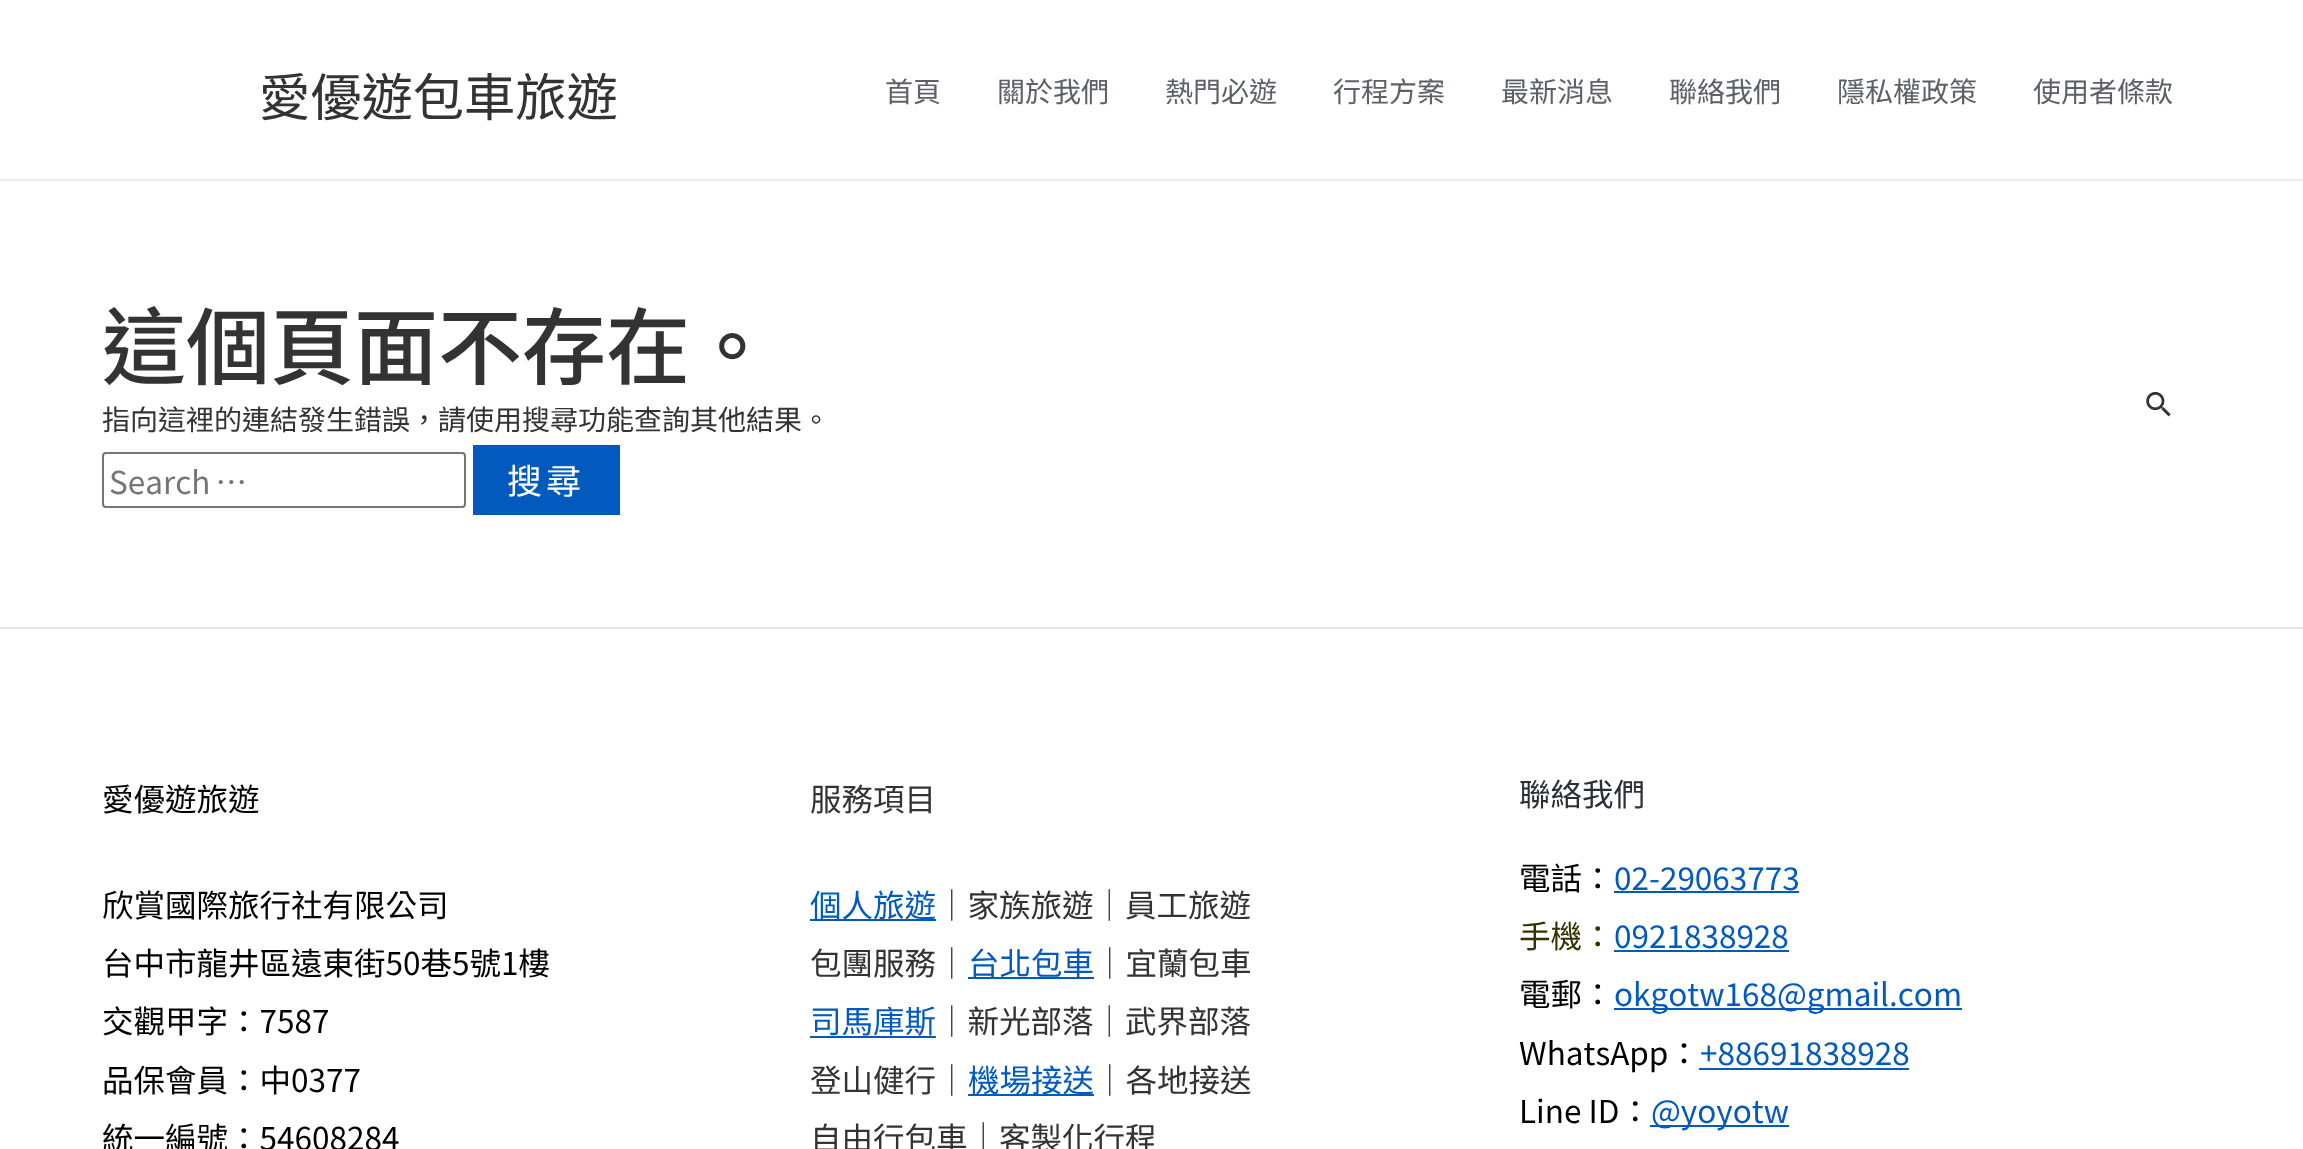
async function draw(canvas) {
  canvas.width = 2303
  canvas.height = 1149
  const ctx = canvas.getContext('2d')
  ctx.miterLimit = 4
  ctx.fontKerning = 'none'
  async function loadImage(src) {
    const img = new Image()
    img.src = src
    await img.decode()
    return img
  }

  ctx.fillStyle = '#fff'
  ctx.fillRect(0, 0, 2303, 1149)
  ctx.fillStyle = '#eaeaea'
  ctx.fillRect(0, 179, 2303, 2)
  ctx.font = '51.25px Noto Sans TC'
  ctx.fillStyle = '#333'
  ctx.fillText('愛優遊包車旅遊', 259, 116)
  ctx.font = '28px Noto Sans TC'
  ctx.fillStyle = '#5d6167'
  ctx.fillText('首頁', 885, 102)
  ctx.fillText('關於我們', 997, 102)
  ctx.fillText('熱門必遊', 1165, 102)
  ctx.fillText('行程方案', 1333, 102)
  ctx.fillText('最新消息', 1501, 102)
  ctx.fillText('聯絡我們', 1669, 102)
  ctx.fillText('隱私權政策', 1837, 102)
  ctx.fillText('使用者條款', 2033, 102)
  ctx.font = '500 84px Noto Sans TC'
  ctx.fillStyle = '#333'
  ctx.fillText('這個頁面不存在。', 102, 378)
  ctx.font = '28px Noto Sans TC'
  ctx.fillText('指向這裡的連結發生錯誤，請使用搜尋功能查詢其他結果。', 102, 430)
  ctx.drawImage(await loadImage('image0.png'), 2146, 391, 25, 26)
  ctx.beginPath()
  ctx.roundRect(103, 453, 362, 54, 3)
  ctx.strokeStyle = '#767676'
  ctx.lineWidth = 2
  ctx.stroke()
  ctx.wordSpacing = '-2px'
  ctx.font = '31.5px Noto Sans TC'
  ctx.fillStyle = '#757575'
  ctx.fillText('Search …', 109, 494)
  ctx.fillStyle = '#025abe'
  ctx.fillRect(473, 445, 147, 70)
  ctx.letterSpacing = '4px'
  ctx.wordSpacing = '0px'
  ctx.font = '35px Noto Sans TC'
  ctx.fillStyle = '#fffffe'
  ctx.fillText('搜尋', 507, 494)
  ctx.fillStyle = '#e6e6e6'
  ctx.fillRect(0, 627, 2303, 2)
  ctx.letterSpacing = '0px'
  ctx.font = '31.5px Noto Sans TC'
  ctx.fillStyle = '#000'
  ctx.fillText('愛優遊旅遊', 102, 811)
  ctx.fillText('欣賞國際旅行社有限公司', 102, 917)
  ctx.fillText('台中市龍井區遠東街50巷5號1樓', 102, 975)
  ctx.fillText('交觀甲字：7587', 102, 1033)
  ctx.fillText('品保會員：中0377', 102, 1092)
  ctx.fillText('統一編號：54608284', 102, 1150)
  ctx.fillStyle = '#333'
  ctx.fillText('服務項目', 810, 811)
  ctx.fillStyle = '#025abe'
  ctx.fillRect(810, 919, 126, 2)
  ctx.fillText('個人旅遊', 810, 917)
  ctx.fillStyle = '#333'
  ctx.fillText('｜家族旅遊｜員工旅遊', 936, 917)
  ctx.fillText('包團服務｜', 810, 975)
  ctx.fillStyle = '#025abe'
  ctx.fillRect(968, 977, 126, 2)
  ctx.fillText('台北包車', 968, 975)
  ctx.fillStyle = '#333'
  ctx.fillText('｜宜蘭包車', 1094, 975)
  ctx.fillStyle = '#025abe'
  ctx.fillText('司馬庫斯', 810, 1033)
  ctx.fillRect(810, 1036, 126, 2)
  ctx.fillStyle = '#333'
  ctx.fillText('｜新光部落｜武界部落', 936, 1033)
  ctx.fillText('登山健行｜', 810, 1092)
  ctx.fillStyle = '#025abe'
  ctx.fillRect(968, 1094, 126, 2)
  ctx.fillText('機場接送', 968, 1092)
  ctx.fillStyle = '#333'
  ctx.fillText('｜各地接送', 1094, 1092)
  ctx.fillText('自由行包車｜客製化行程', 810, 1150)
  ctx.fillStyle = '#2b2f38'
  ctx.fillText('聯絡我們', 1519, 806)
  ctx.fillStyle = '#000'
  ctx.fillText('電話：', 1519, 890)
  ctx.fillStyle = '#025abe'
  ctx.fillText('02-29063773', 1614, 890)
  ctx.fillRect(1614, 891, 185, 2)
  ctx.fillStyle = '#330'
  ctx.fillText('手機：', 1519, 948)
  ctx.fillStyle = '#025abe'
  ctx.fillText('0921838928', 1614, 948)
  ctx.fillRect(1614, 950, 175, 2)
  ctx.fillStyle = '#000'
  ctx.fillText('電郵：', 1519, 1006)
  ctx.fillStyle = '#025abe'
  ctx.fillRect(1614, 1008, 348, 2)
  ctx.fillText('okgotw168@gmail.com', 1614, 1006)
  ctx.fillStyle = '#000'
  ctx.fillText('WhatsApp：', 1519, 1065)
  ctx.fillStyle = '#025abe'
  ctx.fillText('+88691838928', 1700, 1065)
  ctx.fillRect(1699, 1068, 210, 2)
  ctx.fillStyle = '#000'
  ctx.fillText('Line ID：', 1519, 1123)
  ctx.fillStyle = '#025abe'
  ctx.fillRect(1650, 1125, 139, 2)
  ctx.fillText('@yoyotw', 1651, 1123)
}

draw(document.querySelector('canvas'))
